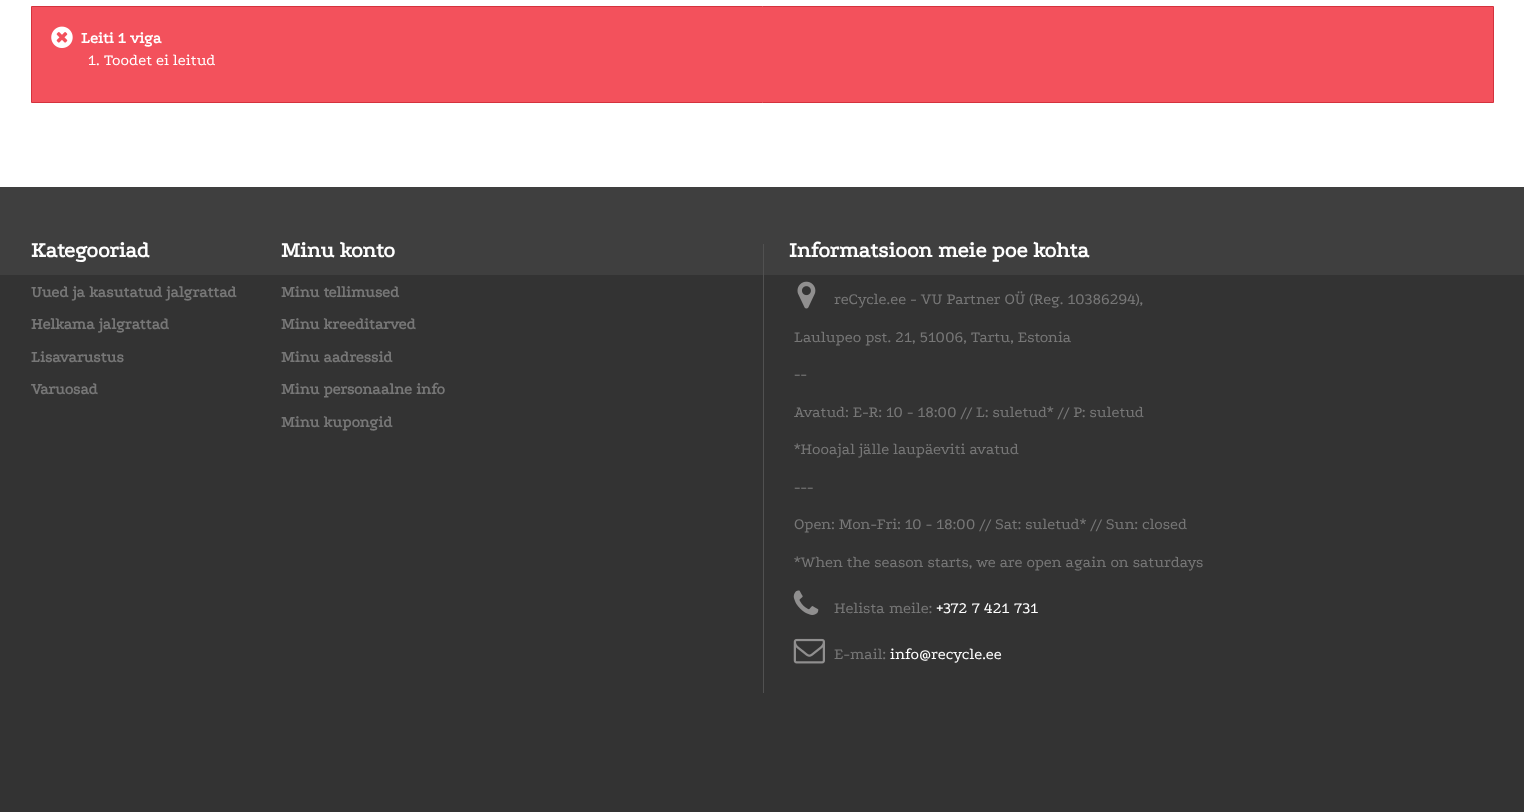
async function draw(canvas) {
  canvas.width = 1524
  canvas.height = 812
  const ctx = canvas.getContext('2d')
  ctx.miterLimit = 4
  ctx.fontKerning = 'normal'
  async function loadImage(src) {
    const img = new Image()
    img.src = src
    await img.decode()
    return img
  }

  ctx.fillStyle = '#fff'
  ctx.fillRect(0, 0, 1524, 812)
  ctx.fillStyle = '#f3515c'
  ctx.beginPath()
  ctx.rect(31.5, 6.5, 1462, 96)
  ctx.fill()
  ctx.strokeStyle = '#d4323d'
  ctx.stroke()
  ctx.drawImage(await loadImage('image0.png'), 51, 26, 22, 22)
  ctx.font = 'bold 16.25px Podkova'
  ctx.fillStyle = '#fff'
  ctx.fillText('Leiti 1 viga', 81, 43)
  ctx.font = '16.25px Podkova'
  ctx.fillText('1. Toodet ei leitud', 88, 65)
  ctx.fillStyle = '#333'
  ctx.fillRect(0, 275, 1524, 537)
  ctx.fillStyle = '#3f3f3f'
  ctx.fillRect(0, 187, 1524, 88)
  ctx.font = 'bold 22.5px Podkova'
  ctx.fillStyle = '#fff'
  ctx.fillText('Kategooriad', 31, 257)
  ctx.font = 'bold 16.25px Podkova'
  ctx.fillStyle = '#777'
  ctx.fillText('Uued ja kasutatud jalgrattad', 31, 297)
  ctx.fillText('Helkama jalgrattad', 31, 329)
  ctx.fillText('Lisavarustus', 31, 362)
  ctx.fillText('Varuosad', 31, 394)
  ctx.font = 'bold 22.5px Podkova'
  ctx.fillStyle = '#fff'
  ctx.fillText('Minu konto', 281, 257)
  ctx.font = 'bold 16.25px Podkova'
  ctx.fillStyle = '#777'
  ctx.fillText('Minu tellimused', 281, 297)
  ctx.fillText('Minu kreeditarved', 281, 329)
  ctx.fillText('Minu aadressid', 281, 362)
  ctx.fillText('Minu personaalne info', 281, 394)
  ctx.fillText('Minu kupongid', 281, 427)
  ctx.fillStyle = '#515151'
  ctx.fillRect(763, 244, 1, 449)
  ctx.font = 'bold 22.5px Podkova'
  ctx.fillStyle = '#fff'
  ctx.fillText('Informatsioon meie poe kohta', 789, 257)
  ctx.drawImage(await loadImage('image1.png'), 797, 281, 19, 28)
  ctx.font = '16.25px Podkova'
  ctx.fillStyle = '#777'
  ctx.fillText('reCycle.ee - VU Partner OÜ (Reg. 10386294),', 834, 304)
  ctx.fillText('Laulupeo pst. 21, 51006, Tartu, Estonia', 794, 342)
  ctx.fillText('--', 794, 379)
  ctx.fillText('Avatud: E-R: 10 - 18:00 // L: suletud* // P: suletud', 794, 417)
  ctx.fillText('*Hooajal jälle laupäeviti avatud', 794, 454)
  ctx.fillText('---', 794, 492)
  ctx.fillText('Open: Mon-Fri: 10 - 18:00 // Sat: suletud* // Sun: closed', 794, 529)
  ctx.fillText('*When the season starts, we are open again on saturdays', 794, 567)
  ctx.drawImage(await loadImage('image2.png'), 793, 590, 26, 25)
  ctx.fillText('Helista meile:', 834, 613)
  ctx.fillStyle = '#fff'
  ctx.fillText('+372 7 421 731', 936, 613)
  ctx.drawImage(await loadImage('image3.png'), 793, 638, 32, 26)
  ctx.fillStyle = '#777'
  ctx.fillText('E-mail:', 834, 659)
  ctx.fillStyle = '#fff'
  ctx.fillText('info@recycle.ee', 890, 659)
}

draw(document.querySelector('canvas'))
